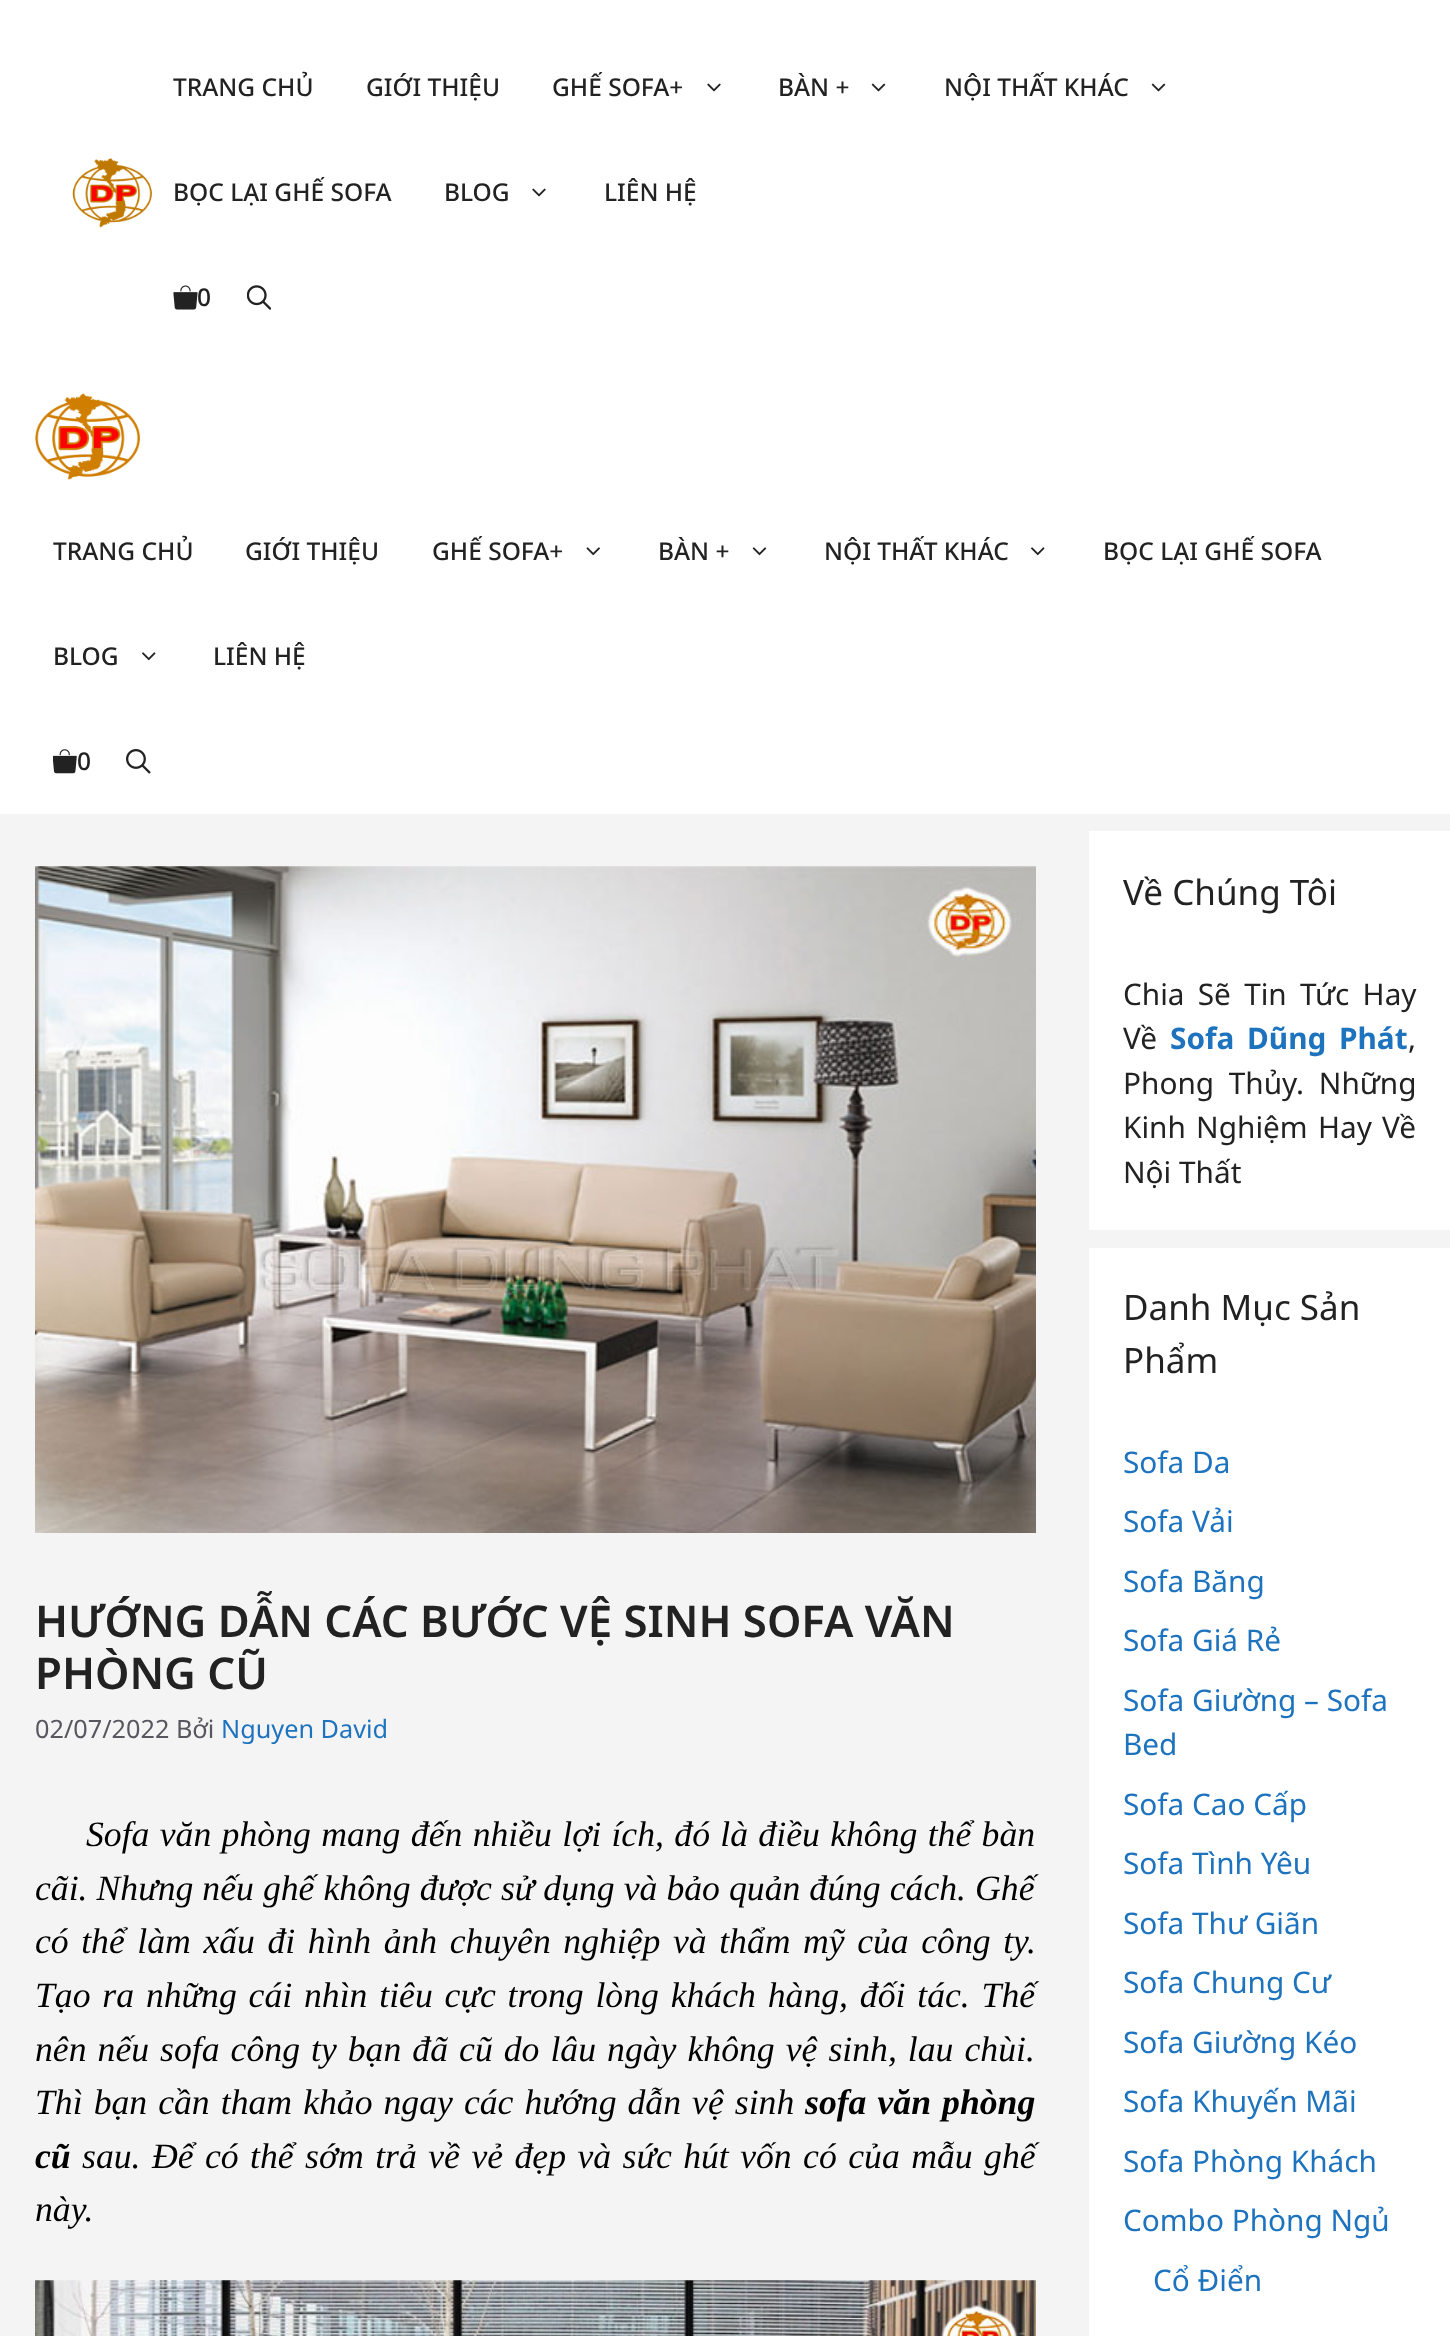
async function draw(canvas) {
  canvas.width = 1450
  canvas.height = 2336
  const ctx = canvas.getContext('2d')
  ctx.miterLimit = 4
  ctx.fontKerning = 'normal'
  async function loadImage(src) {
    const img = new Image()
    img.src = src
    await img.decode()
    return img
  }

  ctx.fillStyle = '#f4f4f4'
  ctx.fillRect(0, 0, 1450, 2336)
  ctx.fillStyle = '#fff'
  ctx.fillRect(0, 0, 1450, 814)
  ctx.drawImage(await loadImage('image0.png'), 72, 158, 80, 70)
  ctx.font = '500 24.5px Noto Sans'
  ctx.fillStyle = '#222'
  ctx.fillText('TRANG CHỦ', 173, 96)
  ctx.fillText('GIỚI THIỆU', 366, 96)
  ctx.fillText('GHẾ SOFA+', 552, 96)
  ctx.drawImage(await loadImage('image1.png'), 707, 83, 14, 9)
  ctx.fillText('BÀN +', 778, 96)
  ctx.drawImage(await loadImage('image2.png'), 871, 83, 15, 9)
  ctx.fillText('NỘI THẤT KHÁC', 944, 96)
  ctx.drawImage(await loadImage('image2.png'), 1151, 83, 15, 9)
  ctx.fillText('BỌC LẠI GHẾ SOFA', 173, 201)
  ctx.fillText('BLOG', 444, 201)
  ctx.drawImage(await loadImage('image1.png'), 532, 188, 14, 9)
  ctx.fillText('LIÊN HỆ', 604, 201)
  ctx.drawImage(await loadImage('image3.png'), 173, 285, 25, 25)
  ctx.fillText('0', 197, 306)
  ctx.drawImage(await loadImage('image4.png'), 247, 285, 24, 25)
  ctx.drawImage(await loadImage('image5.png'), 35, 393, 105, 87)
  ctx.fillText('TRANG CHỦ', 53, 560)
  ctx.fillText('GIỚI THIỆU', 245, 560)
  ctx.fillText('GHẾ SOFA+', 432, 560)
  ctx.drawImage(await loadImage('image6.png'), 586, 547, 14, 9)
  ctx.fillText('BÀN +', 658, 560)
  ctx.drawImage(await loadImage('image7.png'), 752, 547, 15, 9)
  ctx.fillText('NỘI THẤT KHÁC', 824, 560)
  ctx.drawImage(await loadImage('image8.png'), 1031, 547, 14, 9)
  ctx.fillText('BỌC LẠI GHẾ SOFA', 1103, 560)
  ctx.fillText('BLOG', 53, 665)
  ctx.drawImage(await loadImage('image8.png'), 142, 652, 14, 9)
  ctx.fillText('LIÊN HỆ', 213, 665)
  ctx.drawImage(await loadImage('image9.png'), 53, 749, 24, 25)
  ctx.fillText('0', 77, 770)
  ctx.drawImage(await loadImage('image10.png'), 126, 749, 25, 25)
  ctx.drawImage(await loadImage('image11.png'), 35, 866, 1001, 667)
  ctx.font = '600 43.75px Noto Sans'
  ctx.fillText('HƯỚNG DẪN CÁC BƯỚC VỆ SINH SOFA VĂN', 35, 1637)
  ctx.fillText('PHÒNG CŨ', 35, 1689)
  ctx.font = '25.25px Noto Sans'
  ctx.fillStyle = '#575760'
  ctx.fillText('02/07/2022 Bởi', 35, 1738)
  ctx.fillStyle = '#1e73be'
  ctx.fillText('Nguyen David', 221, 1738)
  ctx.wordSpacing = '1.4px'
  ctx.font = 'italic 35.7px Liberation Serif'
  ctx.fillStyle = '#000'
  ctx.fillText('Sofa văn phòng mang đến nhiều lợi ích, đó là điều không thể bàn', 86, 1846)
  ctx.wordSpacing = '0.1px'
  ctx.fillText('cãi. Nhưng nếu ghế không được sử dụng và bảo quản đúng cách. Ghế', 35, 1900)
  ctx.wordSpacing = '3.6px'
  ctx.fillText('có thể làm xấu đi hình ảnh chuyên nghiệp và thẩm mỹ của công ty.', 35, 1953)
  ctx.wordSpacing = '2.9px'
  ctx.fillText('Tạo ra những cái nhìn tiêu cực trong lòng khách hàng, đối tác. Thế', 35, 2007)
  ctx.wordSpacing = '2.1px'
  ctx.fillText('nên nếu sofa công ty bạn đã cũ do lâu ngày không vệ sinh, lau chùi.', 35, 2061)
  ctx.fillText('Thì bạn cần tham khảo ngay các hướng dẫn vệ sinh', 35, 2114)
  ctx.font = 'italic bold 35.7px Liberation Serif'
  ctx.fillText('sofa văn phòng', 805, 2114)
  ctx.wordSpacing = '0px'
  ctx.fillText('cũ', 35, 2168)
  ctx.wordSpacing = '2.5px'
  ctx.font = 'italic 35.7px Liberation Serif'
  ctx.fillText('sau. Để có thể sớm trả về vẻ đẹp và sức hút vốn có của mẫu ghế', 82, 2168)
  ctx.wordSpacing = '0px'
  ctx.fillText('này.', 35, 2221)
  ctx.drawImage(await loadImage('image12.png'), 35, 2280, 1001, 56)
  ctx.fillStyle = '#fff'
  ctx.fillRect(1089, 831, 361, 399)
  ctx.font = '35px Noto Sans'
  ctx.fillStyle = '#222'
  ctx.fillText('Về Chúng Tôi', 1123, 905)
  ctx.wordSpacing = '5.5px'
  ctx.font = '29.75px Noto Sans'
  ctx.fillText('Chia Sẽ Tin Tức Hay', 1123, 1005)
  ctx.wordSpacing = '0px'
  ctx.fillText('Về', 1123, 1049)
  ctx.wordSpacing = '5px'
  ctx.font = 'bold 29.75px Noto Sans'
  ctx.fillStyle = '#1e73be'
  ctx.fillText('Sofa Dũng Phát', 1170, 1049)
  ctx.wordSpacing = '0px'
  ctx.font = '29.75px Noto Sans'
  ctx.fillStyle = '#222'
  ctx.fillText(',', 1408, 1049)
  ctx.wordSpacing = '7px'
  ctx.fillText('Phong Thủy. Những', 1123, 1094)
  ctx.wordSpacing = '2.5px'
  ctx.fillText('Kinh Nghiệm Hay Về', 1123, 1138)
  ctx.wordSpacing = '0px'
  ctx.fillText('Nội Thất', 1123, 1183)
  ctx.fillStyle = '#fff'
  ctx.fillRect(1089, 1248, 361, 1088)
  ctx.font = '35px Noto Sans'
  ctx.fillStyle = '#222'
  ctx.fillText('Danh Mục Sản', 1123, 1320)
  ctx.fillText('Phẩm', 1123, 1373)
  ctx.font = '29.75px Noto Sans'
  ctx.fillStyle = '#1e73be'
  ctx.fillText('Sofa Da', 1123, 1473)
  ctx.fillText('Sofa Vải', 1123, 1532)
  ctx.fillText('Sofa Băng', 1123, 1592)
  ctx.fillText('Sofa Giá Rẻ', 1123, 1651)
  ctx.fillText('Sofa Giường – Sofa', 1123, 1711)
  ctx.fillText('Bed', 1123, 1755)
  ctx.fillText('Sofa Cao Cấp', 1123, 1815)
  ctx.fillText('Sofa Tình Yêu', 1123, 1874)
  ctx.fillText('Sofa Thư Giãn', 1123, 1934)
  ctx.fillText('Sofa Chung Cư', 1123, 1993)
  ctx.fillText('Sofa Giường Kéo', 1123, 2053)
  ctx.fillText('Sofa Khuyến Mãi', 1123, 2112)
  ctx.fillText('Sofa Phòng Khách', 1123, 2172)
  ctx.fillText('Combo Phòng Ngủ', 1123, 2231)
  ctx.fillText('Cổ Điển', 1153, 2291)
}

draw(document.querySelector('canvas'))
